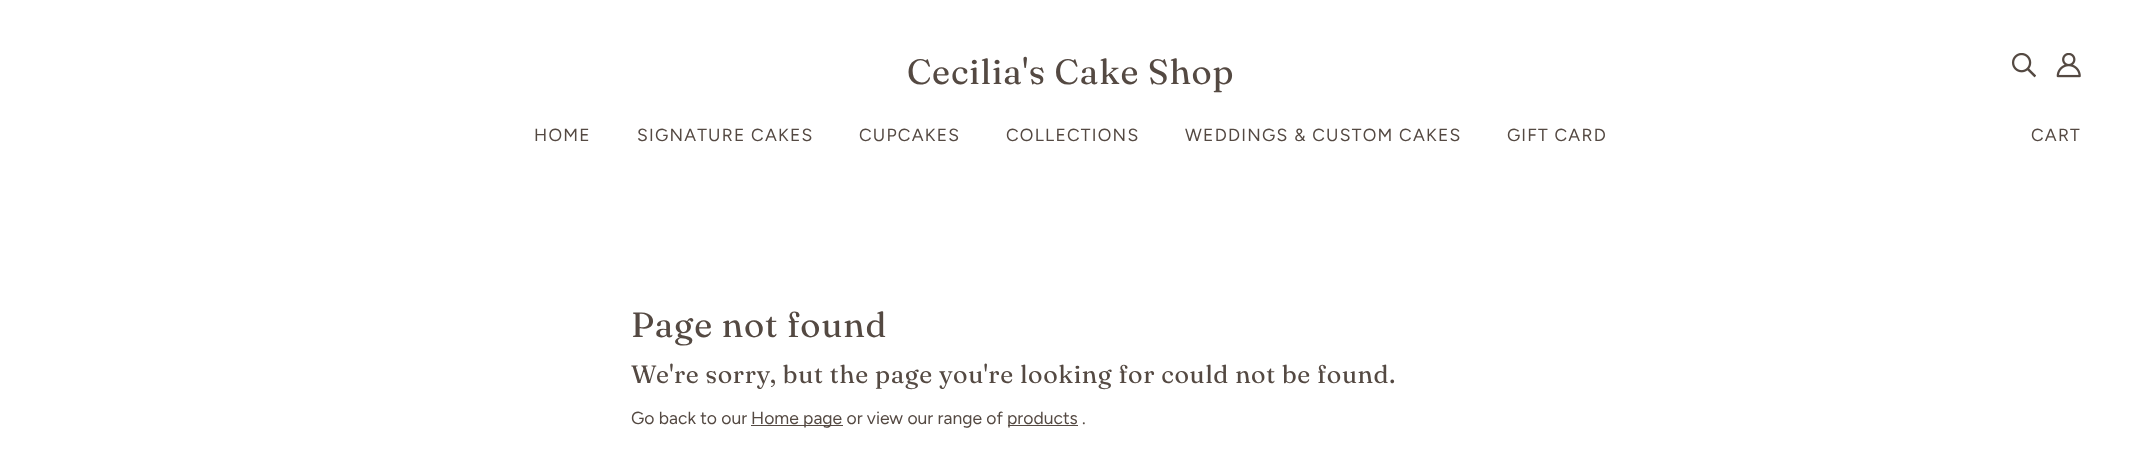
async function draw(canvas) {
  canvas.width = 2141
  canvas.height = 460
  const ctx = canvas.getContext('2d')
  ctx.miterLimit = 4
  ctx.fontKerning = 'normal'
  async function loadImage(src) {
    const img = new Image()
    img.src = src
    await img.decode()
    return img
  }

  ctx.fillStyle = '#fff'
  ctx.fillRect(0, 0, 2141, 460)
  ctx.letterSpacing = '0.9px'
  ctx.font = '35px Fraunces'
  ctx.fillStyle = '#544942'
  ctx.fillText('Cecilia\'s Cake Shop', 907, 84)
  ctx.drawImage(await loadImage('image0.png'), 2011, 53, 25, 25)
  ctx.drawImage(await loadImage('image1.png'), 2056, 53, 25, 25)
  ctx.letterSpacing = '1.25px'
  ctx.font = '17.5px Figtree'
  ctx.fillText('HOME', 534, 141)
  ctx.fillText('SIGNATURE CAKES', 637, 141)
  ctx.fillText('CUPCAKES', 859, 141)
  ctx.fillText('COLLECTIONS', 1006, 141)
  ctx.fillText('WEDDINGS & CUSTOM CAKES', 1185, 141)
  ctx.fillText('GIFT CARD', 1507, 141)
  ctx.fillText('CART', 2031, 141)
  ctx.letterSpacing = '0.9px'
  ctx.font = '35px Fraunces'
  ctx.fillText('Page not found', 631, 337)
  ctx.letterSpacing = '0.62px'
  ctx.font = '25px "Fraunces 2"'
  ctx.fillText('We\'re sorry, but the page you\'re looking for could not be found.', 631, 383)
  ctx.letterSpacing = '0px'
  ctx.font = '17.5px Figtree'
  ctx.fillText('Go back to our', 631, 424)
  ctx.fillRect(751, 425, 92, 1)
  ctx.fillText('Home page or view our range of', 751, 424)
  ctx.fillRect(1008, 425, 70, 1)
  ctx.fillText('products .', 1007, 424)
}

draw(document.querySelector('canvas'))
